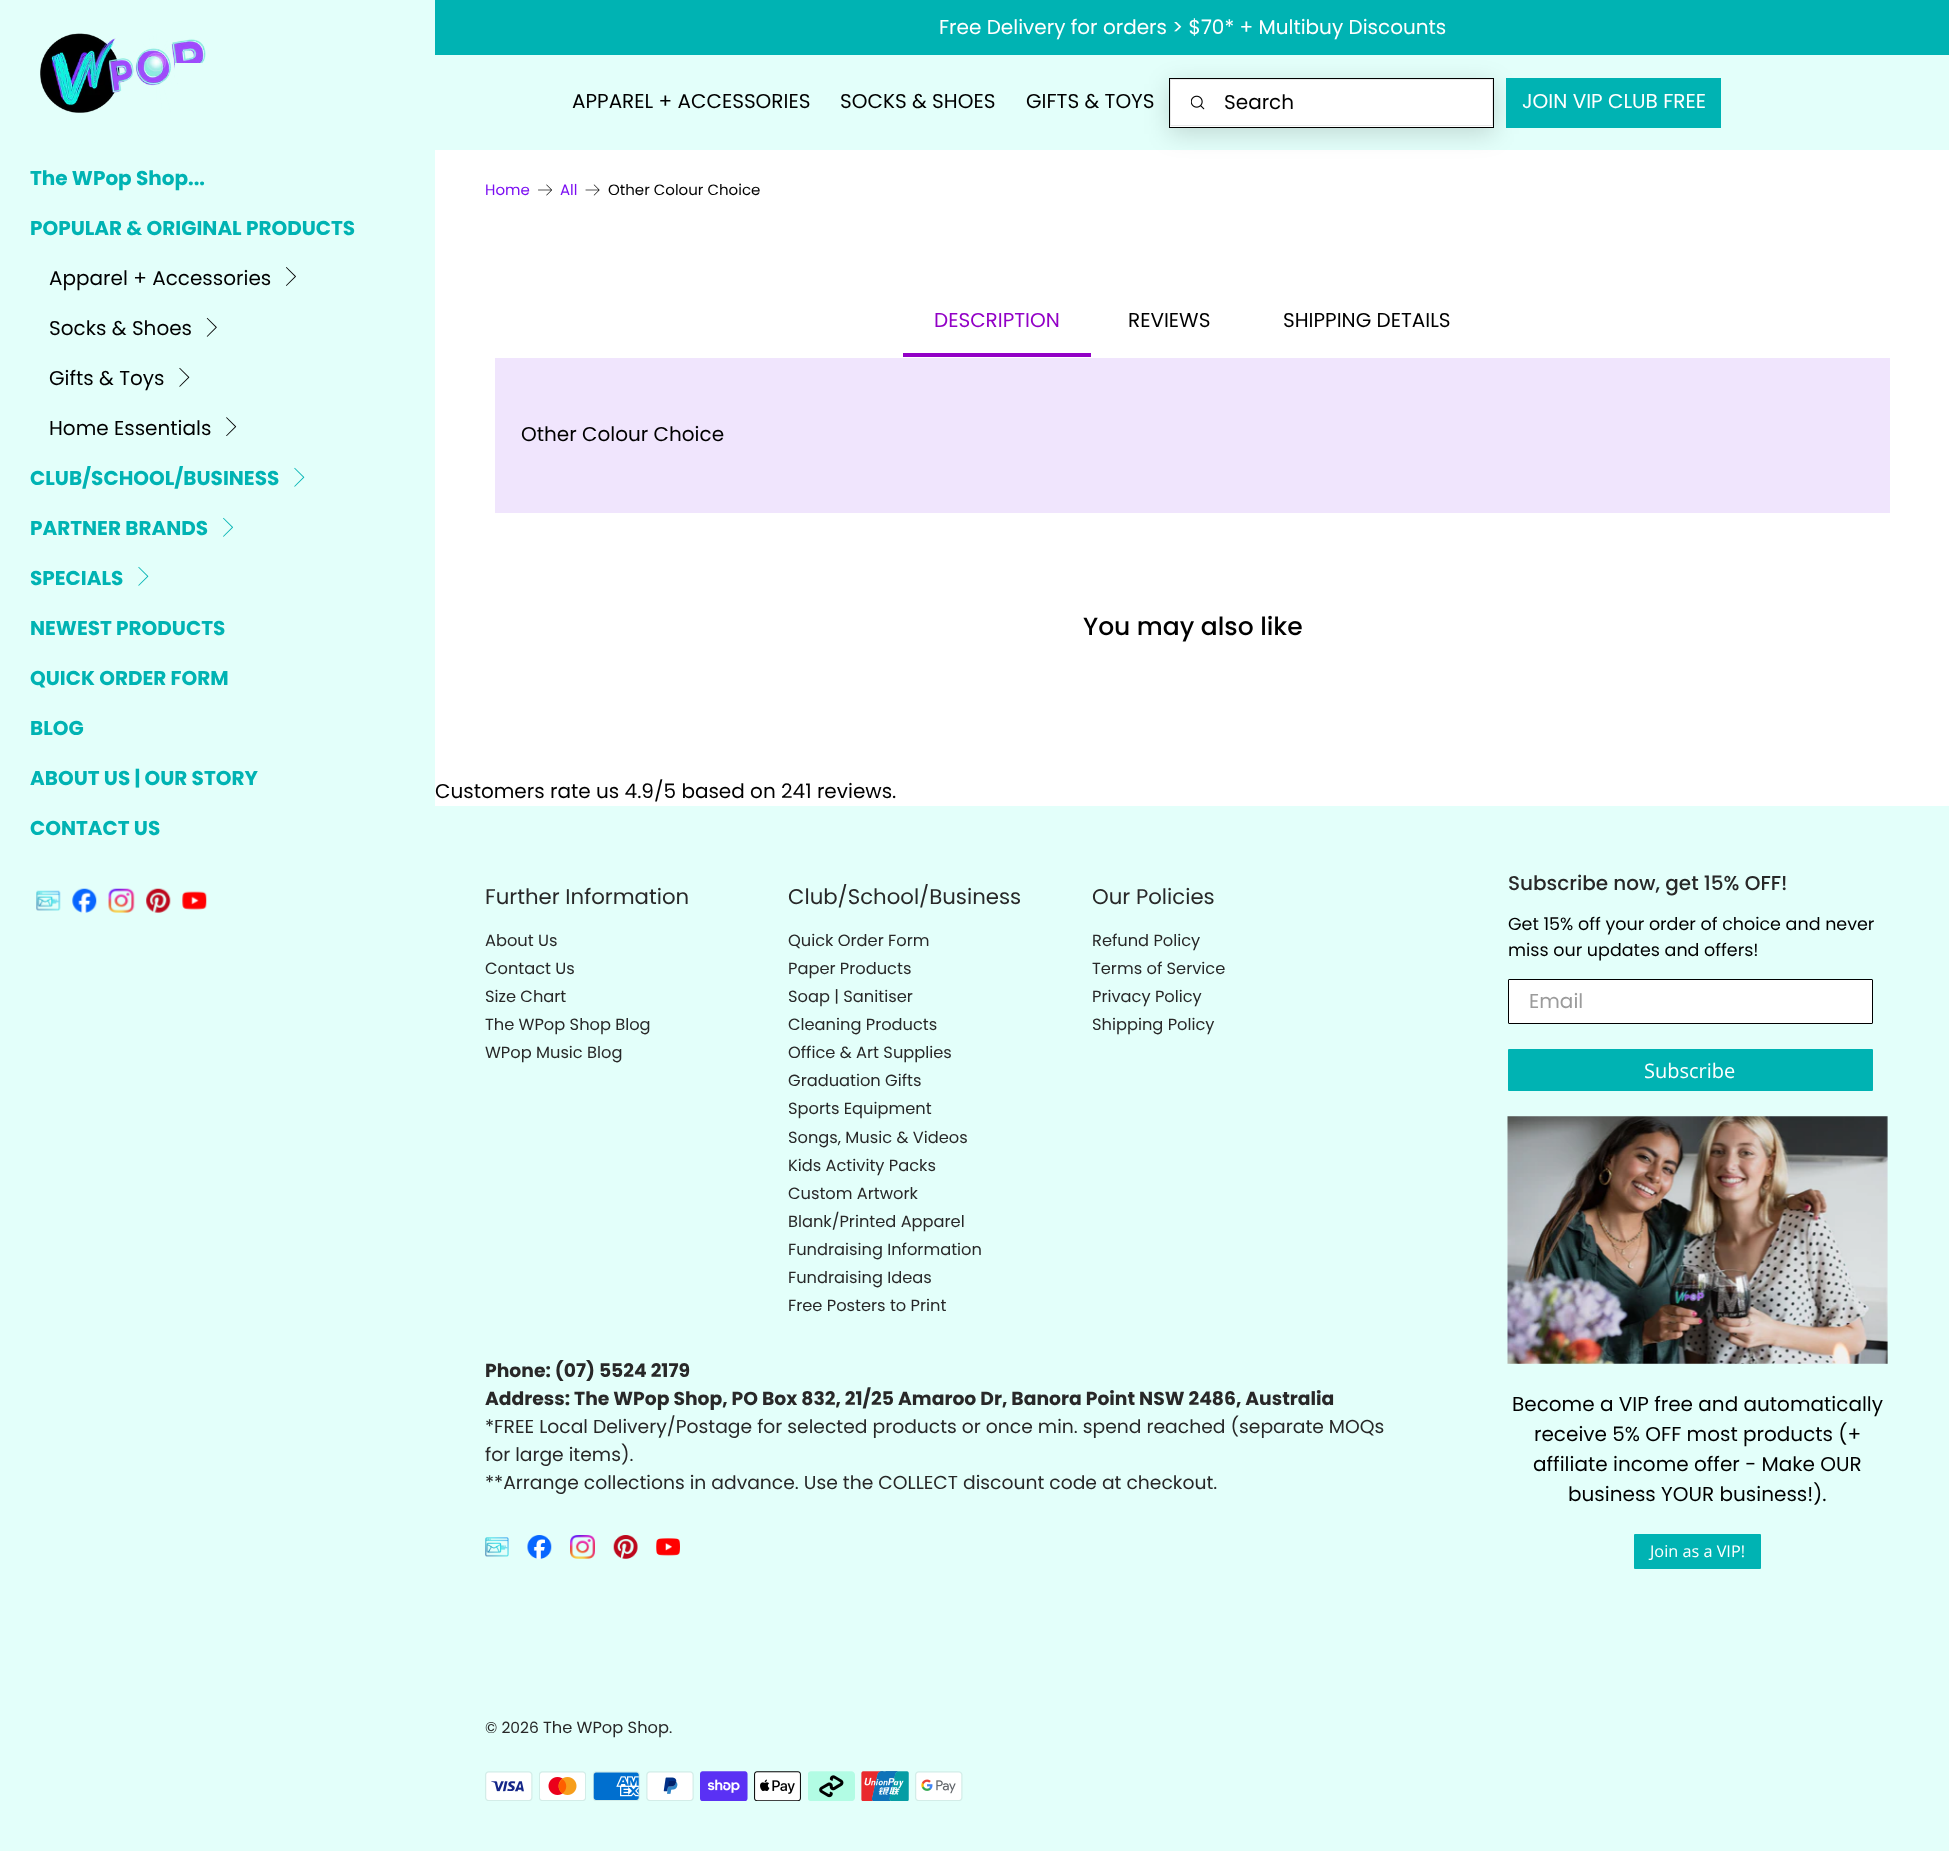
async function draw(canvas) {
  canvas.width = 1949
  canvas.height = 1851
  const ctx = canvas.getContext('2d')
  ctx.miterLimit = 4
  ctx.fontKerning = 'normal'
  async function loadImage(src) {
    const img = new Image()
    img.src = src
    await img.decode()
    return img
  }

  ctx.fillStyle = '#fff'
  ctx.fillRect(0, 0, 1949, 1851)
  ctx.fillStyle = '#00b3b3'
  ctx.fillRect(435, 0, 1514, 55)
  ctx.font = '20px Poppins'
  ctx.fillStyle = '#fff'
  ctx.fillText('Free Delivery for orders > $70* + Multibuy Discounts', 939, 34)
  ctx.fillStyle = '#e3fffa'
  ctx.fillRect(0, 0, 435, 1851)
  ctx.drawImage(await loadImage('image1.png'), 40, 33, 166, 80)
  ctx.fillRect(175, 63, 27, 20)
  ctx.fillRect(435, 55, 1514, 95)
  ctx.fillStyle = '#000'
  ctx.fillText('APPAREL + ACCESSORIES', 572, 108)
  ctx.fillText('SOCKS & SHOES', 840, 108)
  ctx.fillText('GIFTS & TOYS', 1026, 108)
  ctx.fillStyle = '#00000026'
  ctx.filter = 'blur(12.5px)'
  ctx.beginPath()
  ctx.rect(1169, 84, 325, 50)
  ctx.fill()
  ctx.filter = 'none'
  ctx.fillStyle = '#fff'
  ctx.fillRect(1170, 80, 323, 47)
  ctx.strokeStyle = '#eaeaea'
  ctx.strokeRect(1170.5, 79.5, 322, 46)
  ctx.strokeStyle = '#000'
  ctx.strokeRect(1169.5, 78.5, 324, 49)
  ctx.drawImage(await loadImage('image0.png'), 1191, 95, 14, 15)
  ctx.fillStyle = '#000'
  ctx.fillText('Search', 1224, 109)
  ctx.fillStyle = '#00b3b3'
  ctx.fillRect(1506, 78, 215, 50)
  ctx.fillStyle = '#fff'
  ctx.fillText('JOIN VIP CLUB FREE', 1522, 108)
  ctx.font = 'bold 20px Poppins'
  ctx.fillStyle = '#00b3b3'
  ctx.fillText('The WPop Shop...', 30, 185)
  ctx.fillText('POPULAR & ORIGINAL PRODUCTS', 30, 235)
  ctx.font = '20px Poppins'
  ctx.fillStyle = '#000'
  ctx.fillText('Apparel + Accessories', 49, 285)
  ctx.drawImage(await loadImage('image2.png'), 286, 267, 10, 19)
  ctx.fillText('Socks & Shoes', 49, 335)
  ctx.drawImage(await loadImage('image3.png'), 206, 317, 11, 20)
  ctx.fillText('Gifts & Toys', 49, 385)
  ctx.drawImage(await loadImage('image4.png'), 179, 367, 11, 20)
  ctx.fillText('Home Essentials', 49, 435)
  ctx.drawImage(await loadImage('image5.png'), 226, 417, 11, 19)
  ctx.font = 'bold 20px Poppins'
  ctx.fillStyle = '#00b3b3'
  ctx.fillText('CLUB/SCHOOL/BUSINESS', 30, 485)
  ctx.drawImage(await loadImage('image6.png'), 294, 467, 11, 20)
  ctx.fillText('PARTNER BRANDS', 30, 535)
  ctx.drawImage(await loadImage('image7.png'), 223, 517, 10, 20)
  ctx.fillText('SPECIALS', 30, 585)
  ctx.drawImage(await loadImage('image8.png'), 138, 566, 11, 20)
  ctx.fillText('NEWEST PRODUCTS', 30, 635)
  ctx.fillText('QUICK ORDER FORM', 30, 685)
  ctx.fillText('BLOG', 30, 735)
  ctx.fillText('ABOUT US | OUR STORY', 30, 785)
  ctx.fillText('CONTACT US', 30, 835)
  ctx.drawImage(await loadImage('image9.png'), 36, 890, 25, 21)
  ctx.drawImage(await loadImage('image10.png'), 72, 888, 25, 25)
  ctx.drawImage(await loadImage('image11.png'), 108, 888, 27, 25)
  ctx.drawImage(await loadImage('image12.png'), 146, 888, 25, 25)
  ctx.drawImage(await loadImage('image13.png'), 182, 891, 25, 19)
  ctx.font = '15px Poppins'
  ctx.fillStyle = '#7b0ef2'
  ctx.fillText('Home', 485, 195)
  ctx.drawImage(await loadImage('image14.png'), 538, 184, 14, 12)
  ctx.fillText('All', 560, 195)
  ctx.drawImage(await loadImage('image15.png'), 585, 184, 15, 12)
  ctx.fillStyle = '#000'
  ctx.fillText('Other Colour Choice', 608, 195)
  ctx.font = '20px Poppins'
  ctx.fillStyle = '#9200c6'
  ctx.fillText('DESCRIPTION', 934, 327)
  ctx.fillRect(903, 353, 188, 4)
  ctx.fillStyle = '#000'
  ctx.fillText('REVIEWS', 1128, 327)
  ctx.fillText('SHIPPING DETAILS', 1283, 327)
  ctx.fillStyle = '#f0e5fd'
  ctx.fillRect(495, 358, 1395, 155)
  ctx.fillStyle = '#000'
  ctx.fillText('Other Colour Choice', 521, 441)
  ctx.font = '500 25px Poppins'
  ctx.fillText('You may also like', 1083, 635)
  ctx.font = '20px Poppins'
  ctx.fillText('Customers rate us 4.9/5 based on 241 reviews.', 435, 798)
  ctx.fillStyle = '#e3fffa'
  ctx.fillRect(435, 806, 1514, 1045)
  ctx.font = '21.25px Poppins'
  ctx.fillStyle = '#282828'
  ctx.fillText('Further Information', 485, 904)
  ctx.font = '16.25px Poppins'
  ctx.fillText('About Us', 485, 946)
  ctx.fillText('Contact Us', 485, 974)
  ctx.fillText('Size Chart', 485, 1002)
  ctx.fillText('The WPop Shop Blog', 485, 1030)
  ctx.fillText('WPop Music Blog', 485, 1058)
  ctx.font = '21.25px Poppins'
  ctx.fillText('Club/School/Business', 788, 904)
  ctx.font = '16.25px Poppins'
  ctx.fillText('Quick Order Form', 788, 946)
  ctx.fillText('Paper Products', 788, 974)
  ctx.fillText('Soap | Sanitiser', 788, 1002)
  ctx.fillText('Cleaning Products', 788, 1030)
  ctx.fillText('Office & Art Supplies', 788, 1058)
  ctx.fillText('Graduation Gifts', 788, 1086)
  ctx.fillText('Sports Equipment', 788, 1114)
  ctx.fillText('Songs, Music & Videos', 788, 1143)
  ctx.fillText('Kids Activity Packs', 788, 1171)
  ctx.fillText('Custom Artwork', 788, 1199)
  ctx.fillText('Blank/Printed Apparel', 788, 1227)
  ctx.fillText('Fundraising Information', 788, 1255)
  ctx.fillText('Fundraising Ideas', 788, 1283)
  ctx.fillText('Free Posters to Print', 788, 1311)
  ctx.font = '21.25px Poppins'
  ctx.fillText('Our Policies', 1092, 904)
  ctx.font = '16.25px Poppins'
  ctx.fillText('Refund Policy', 1092, 946)
  ctx.fillText('Terms of Service', 1092, 974)
  ctx.fillText('Privacy Policy', 1092, 1002)
  ctx.fillText('Shipping Policy', 1092, 1030)
  ctx.font = 'bold 18.75px Poppins'
  ctx.fillText('Phone: (07) 5524 2179', 485, 1377)
  ctx.fillText('Address: The WPop Shop, PO Box 832, 21/25 Amaroo Dr, Banora Point NSW 2486, Australia', 485, 1405)
  ctx.font = '18.75px Poppins'
  ctx.fillText('*FREE Local Delivery/Postage for selected products or once min. spend reached (separate MOQs', 485, 1433)
  ctx.fillText('for large items).', 485, 1461)
  ctx.fillText('**Arrange collections in advance. Use the COLLECT discount code at checkout.', 485, 1489)
  ctx.drawImage(await loadImage('image16.png'), 485, 1537, 24, 20)
  ctx.drawImage(await loadImage('image17.png'), 527, 1535, 25, 24)
  ctx.drawImage(await loadImage('image18.png'), 570, 1535, 25, 24)
  ctx.drawImage(await loadImage('image19.png'), 613, 1535, 25, 24)
  ctx.drawImage(await loadImage('image20.png'), 656, 1538, 24, 18)
  ctx.font = '15.5px Poppins'
  ctx.fillText('© 2026', 485, 1733)
  ctx.font = '16.25px Poppins'
  ctx.fillText('The WPop Shop', 543, 1733)
  ctx.font = '15.5px Poppins'
  ctx.fillText('.', 669, 1733)
  ctx.drawImage(await loadImage('image21.png'), 485, 1771, 48, 30)
  ctx.drawImage(await loadImage('image22.png'), 539, 1771, 47, 30)
  ctx.drawImage(await loadImage('image23.png'), 593, 1771, 47, 30)
  ctx.drawImage(await loadImage('image24.png'), 646, 1771, 48, 30)
  ctx.drawImage(await loadImage('image25.png'), 700, 1771, 48, 30)
  ctx.drawImage(await loadImage('image26.png'), 754, 1771, 47, 30)
  ctx.drawImage(await loadImage('image27.png'), 808, 1771, 47, 30)
  ctx.drawImage(await loadImage('image28.png'), 861, 1771, 48, 30)
  ctx.drawImage(await loadImage('image29.png'), 915, 1771, 48, 30)
  ctx.font = '500 20px Poppins'
  ctx.fillText('Subscribe now, get 15% OFF!', 1508, 890)
  ctx.font = '17.5px Poppins'
  ctx.fillStyle = '#000'
  ctx.fillText('Get 15% off your order of choice and never', 1508, 930)
  ctx.fillText('miss our updates and offers!', 1508, 956)
  ctx.fillStyle = '#fff'
  ctx.beginPath()
  ctx.roundRect(1508.5, 979.5, 364, 44, 0.5)
  ctx.fill()
  ctx.stroke()
  ctx.font = '20px Poppins'
  ctx.fillStyle = '#9b9b9b'
  ctx.fillText('Email', 1529, 1008)
  ctx.fillStyle = '#00b3b3'
  ctx.beginPath()
  ctx.roundRect(1508, 1049, 365, 42, 1)
  ctx.fill()
  ctx.font = '20px Open Sans'
  ctx.fillStyle = '#fff'
  ctx.fillText('Subscribe', 1644, 1078)
  ctx.drawImage(await loadImage('image30.png'), 1507, 1116, 381, 248)
  ctx.font = '20px Poppins'
  ctx.fillStyle = '#000'
  ctx.fillText('Become a VIP free and automatically', 1512, 1411)
  ctx.fillText('receive 5% OFF most products (+', 1534, 1441)
  ctx.fillText('affiliate income offer - Make OUR', 1533, 1471)
  ctx.fillText('business YOUR business!).', 1568, 1501)
  ctx.fillStyle = '#00b3b3'
  ctx.beginPath()
  ctx.roundRect(1634, 1534, 127, 35, 1)
  ctx.fill()
  ctx.font = '16.25px Open Sans'
  ctx.fillStyle = '#fff'
  ctx.fillText('Join as a VIP!', 1650, 1557)
}

draw(document.querySelector('canvas'))
